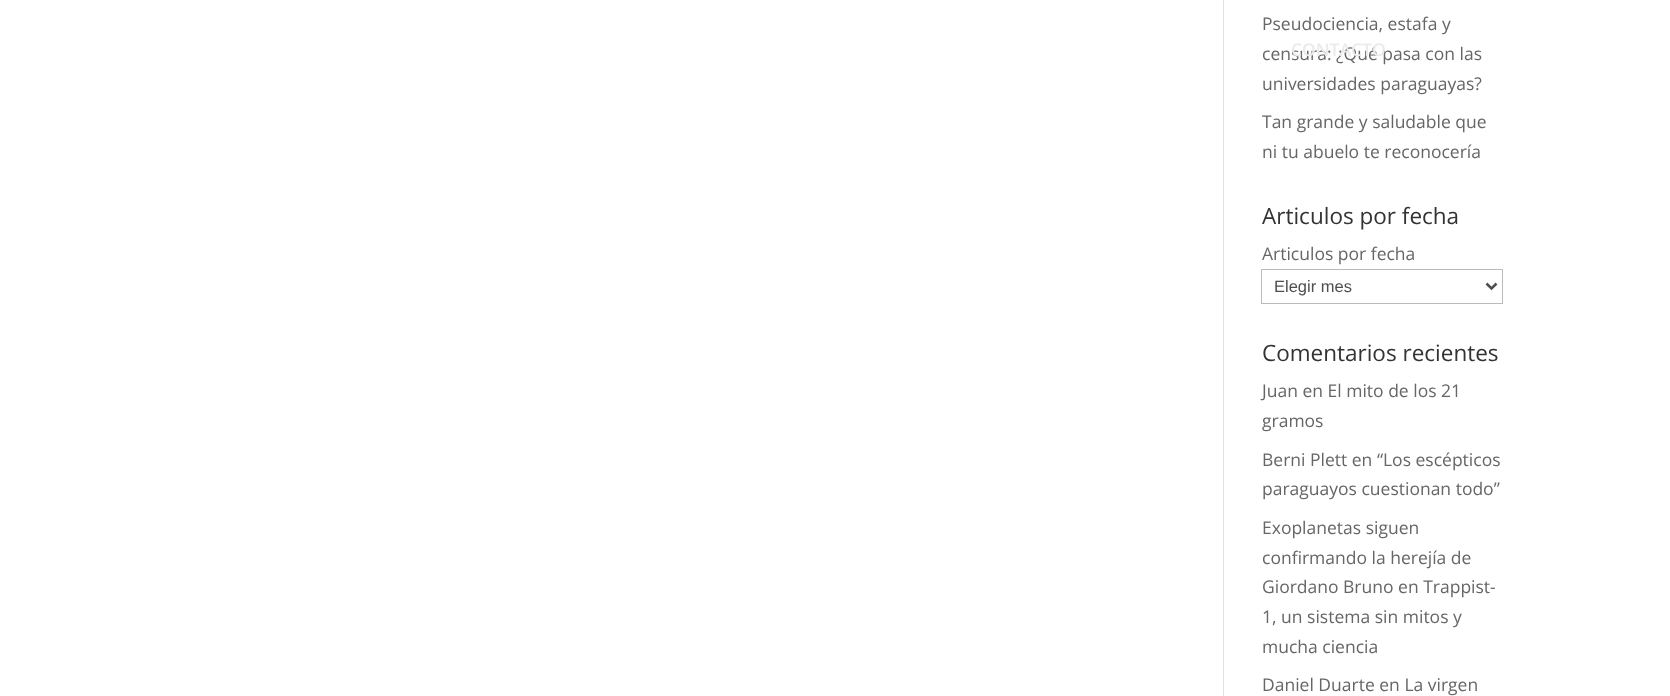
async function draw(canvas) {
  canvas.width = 1670
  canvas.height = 696
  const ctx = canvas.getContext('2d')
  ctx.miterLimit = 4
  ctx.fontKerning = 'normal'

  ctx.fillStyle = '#fff'
  ctx.fillRect(0, 0, 1670, 696)
  ctx.fillStyle = '#e2e2e2'
  ctx.fillRect(1223, 0, 1, 696)
  ctx.font = '17.5px Open Sans'
  ctx.fillStyle = '#666'
  ctx.fillText('Pseudociencia, estafa y', 1262, 30)
  ctx.fillText('censura: ¿Qué pasa con las', 1262, 60)
  ctx.fillText('universidades paraguayas?', 1262, 90)
  ctx.fillText('Tan grande y saludable que', 1262, 128)
  ctx.fillText('ni tu abuelo te reconocería', 1262, 158)
  ctx.font = '22.5px Open Sans'
  ctx.fillStyle = '#333'
  ctx.fillText('Articulos por fecha', 1262, 224)
  ctx.font = '17.5px Open Sans'
  ctx.fillStyle = '#666'
  ctx.fillText('Articulos por fecha', 1262, 260)
  ctx.strokeStyle = '#bbb'
  ctx.strokeRect(1261.5, 269.5, 241, 34)
  ctx.beginPath()
  ctx.moveTo(1486.5, 283.5)
  ctx.lineTo(1491.5, 288.5)
  ctx.lineTo(1496.5, 283.5)
  ctx.strokeStyle = '#4e4e4e'
  ctx.lineWidth = 2.5
  ctx.stroke()
  ctx.font = '16.5px Liberation Sans'
  ctx.fillStyle = '#4e4e4e'
  ctx.fillText('Elegir mes', 1274, 292)
  ctx.font = '22.5px Open Sans'
  ctx.fillStyle = '#333'
  ctx.fillText('Comentarios recientes', 1262, 361)
  ctx.font = '17.5px Open Sans'
  ctx.fillStyle = '#666'
  ctx.fillText('Juan en El mito de los 21', 1262, 397)
  ctx.fillText('gramos', 1262, 427)
  ctx.fillText('Berni Plett en “Los escépticos', 1262, 466)
  ctx.fillText('paraguayos cuestionan todo”', 1262, 495)
  ctx.fillText('Exoplanetas siguen', 1262, 534)
  ctx.fillText('confirmando la herejía de', 1262, 564)
  ctx.fillText('Giordano Bruno en Trappist-', 1262, 593)
  ctx.fillText('1, un sistema sin mitos y', 1262, 623)
  ctx.fillText('mucha ciencia', 1262, 653)
  ctx.fillText('Daniel Duarte en La virgen', 1262, 691)
  ctx.font = '600 17.5px Open Sans'
  ctx.fillStyle = '#ebebeb'
  ctx.fillText('CONTACTO', 1291, 56)
}

draw(document.querySelector('canvas'))
